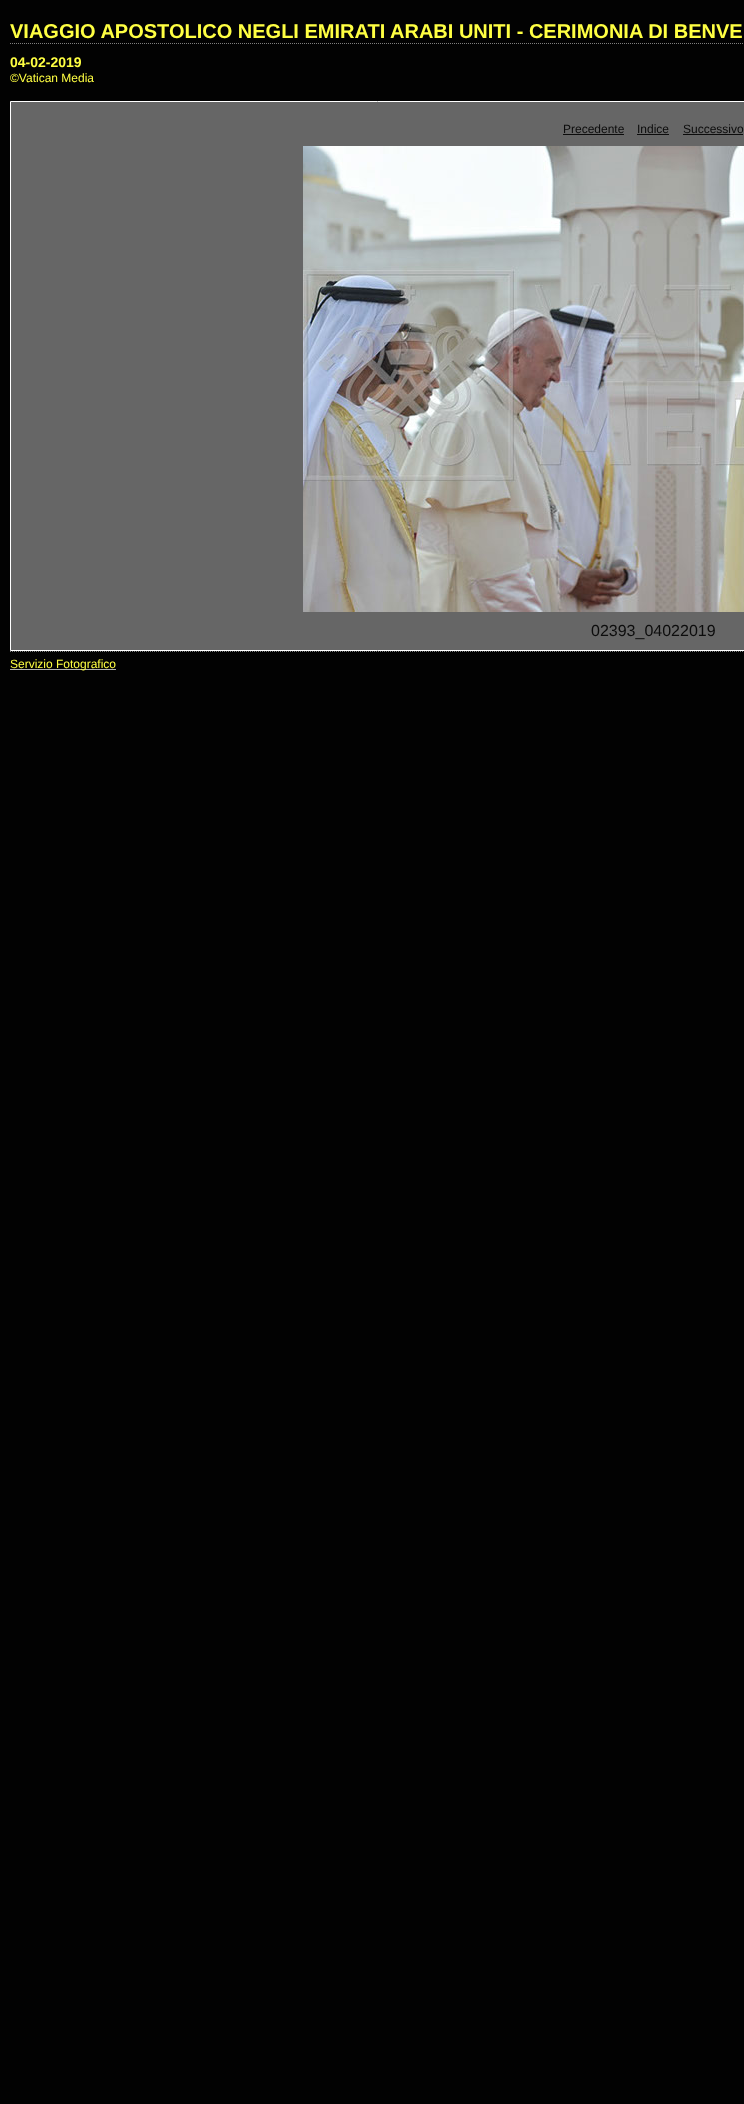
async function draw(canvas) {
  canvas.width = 744
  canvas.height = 2104
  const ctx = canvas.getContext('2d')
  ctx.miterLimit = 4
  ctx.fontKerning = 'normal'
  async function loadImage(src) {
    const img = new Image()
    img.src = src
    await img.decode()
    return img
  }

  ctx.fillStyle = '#020202'
  ctx.fillRect(0, 0, 744, 2104)
  ctx.beginPath()
  ctx.moveTo(10, 43.5)
  ctx.lineTo(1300, 43.5)
  ctx.strokeStyle = '#7f7f7f'
  ctx.setLineDash([1, 1])
  ctx.stroke()
  ctx.font = 'bold 20px Liberation Sans'
  ctx.fillStyle = '#ffff42'
  ctx.fillText('VIAGGIO APOSTOLICO NEGLI EMIRATI ARABI UNITI - CERIMONIA DI BENVE', 10, 38)
  ctx.font = 'bold 14px Liberation Sans'
  ctx.fillText('04-02-2019', 10, 67)
  ctx.font = '12px Liberation Sans'
  ctx.fillText('©Vatican Media', 10, 82)
  ctx.fillStyle = '#666'
  ctx.beginPath()
  ctx.rect(10.5, 101.5, 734, 549)
  ctx.fill()
  ctx.strokeStyle = '#fff'
  ctx.setLineDash([])
  ctx.stroke()
  ctx.fillStyle = '#0c0c0c'
  ctx.fillText('Precedente', 563, 133)
  ctx.fillRect(563, 134, 61, 1)
  ctx.fillText('Indice', 637, 133)
  ctx.fillRect(637, 134, 32, 1)
  ctx.fillText('Successivo', 683, 133)
  ctx.fillRect(683, 134, 60, 1)
  ctx.drawImage(await loadImage('image0.png'), 303, 146, 441, 466)
  ctx.font = '16px Liberation Sans'
  ctx.fillText('02393_04022019', 591, 636)
  ctx.beginPath()
  ctx.moveTo(10, 651.5)
  ctx.lineTo(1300, 651.5)
  ctx.strokeStyle = '#7f7f7f'
  ctx.setLineDash([1, 1])
  ctx.stroke()
  ctx.fillStyle = '#b3b3b3'
  ctx.fillRect(10, 669, 106, 1)
  ctx.font = '12px Liberation Sans'
  ctx.fillStyle = '#ffff42'
  ctx.fillText('Servizio Fotografico', 10, 668)
}

draw(document.querySelector('canvas'))
